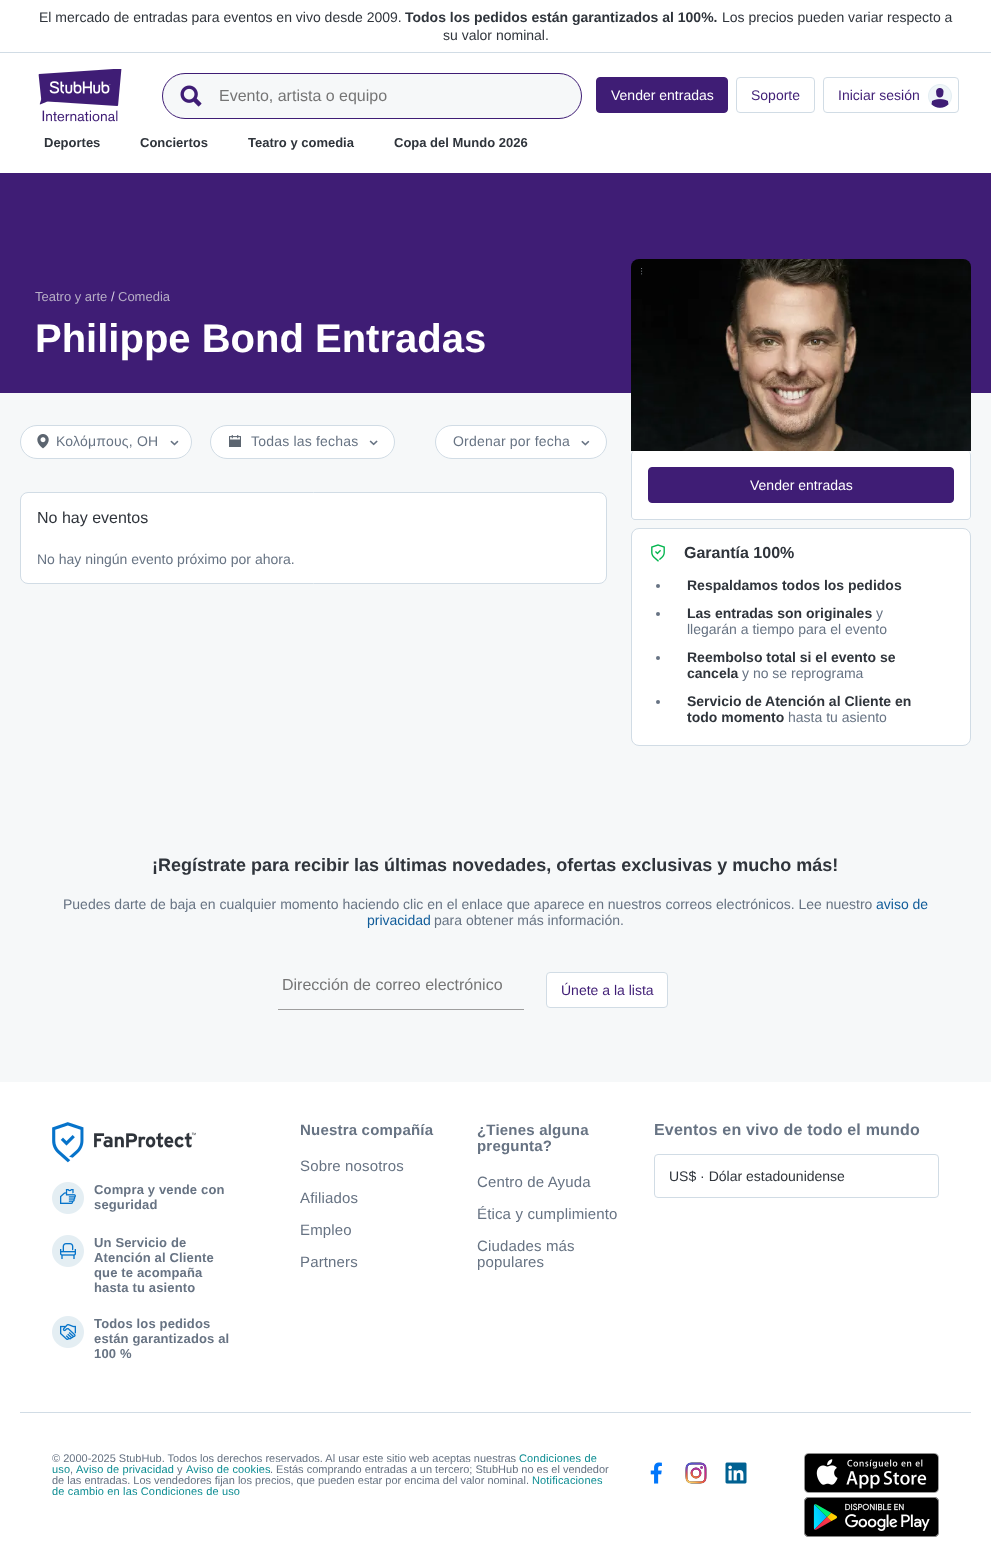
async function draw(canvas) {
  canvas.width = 991
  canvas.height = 1567
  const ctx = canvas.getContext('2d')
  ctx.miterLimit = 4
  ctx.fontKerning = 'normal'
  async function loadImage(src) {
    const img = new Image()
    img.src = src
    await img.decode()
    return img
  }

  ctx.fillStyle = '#f6f8f9'
  ctx.fillRect(0, 0, 991, 1567)
  ctx.fillStyle = '#fff'
  ctx.fillRect(0, 0, 991, 173)
  ctx.fillStyle = '#d1dce5'
  ctx.fillRect(0, 52, 991, 1)
  ctx.font = '14px Liberation Sans'
  ctx.fillStyle = '#2f343b'
  ctx.fillText('El mercado de entradas para eventos en vivo desde 2009.', 39, 22)
  ctx.font = 'bold 14px Liberation Sans'
  ctx.fillText('Todos los pedidos están garantizados al 100%.', 405, 22)
  ctx.font = '14px Liberation Sans'
  ctx.fillText('Los precios pueden variar respecto a', 722, 22)
  ctx.fillText('su valor nominal.', 443, 40)
  ctx.fillStyle = '#f6f8f9'
  ctx.beginPath()
  ctx.roundRect(162.5, 73.5, 419, 45, 22.5)
  ctx.fill()
  ctx.strokeStyle = '#3f1d75'
  ctx.stroke()
  ctx.drawImage(await loadImage('image0.png'), 180, 85, 22, 22)
  ctx.font = '16px Liberation Sans'
  ctx.fillStyle = '#757575'
  ctx.fillText('Evento, artista o equipo', 219, 101)
  ctx.drawImage(await loadImage('image1.png'), 38, 69, 84, 53)
  ctx.fillStyle = '#3f1d75'
  ctx.beginPath()
  ctx.roundRect(596.5, 77.5, 131, 35, 3.5)
  ctx.fill()
  ctx.stroke()
  ctx.font = '14px Liberation Sans'
  ctx.fillStyle = '#fff'
  ctx.fillText('Vender entradas', 611, 100)
  ctx.beginPath()
  ctx.roundRect(736.5, 77.5, 78, 35, 3.5)
  ctx.strokeStyle = '#d1dce5'
  ctx.stroke()
  ctx.fillStyle = '#3f1d75'
  ctx.fillText('Soporte', 751, 100)
  ctx.beginPath()
  ctx.roundRect(823.5, 77.5, 135, 35, 3.5)
  ctx.stroke()
  ctx.fillText('Iniciar sesión', 838, 100)
  ctx.drawImage(await loadImage('image2.png'), 928, 84, 24, 24)
  ctx.font = 'bold 13px Liberation Sans'
  ctx.fillStyle = '#2f343b'
  ctx.fillText('Deportes', 44, 147)
  ctx.fillText('Conciertos', 140, 147)
  ctx.fillText('Teatro y comedia', 248, 147)
  ctx.fillText('Copa del Mundo 2026', 394, 147)
  ctx.fillStyle = '#fff'
  ctx.beginPath()
  ctx.roundRect(20.5, 425.5, 171, 33, 16.5)
  ctx.fill()
  ctx.stroke()
  ctx.drawImage(await loadImage('image3.png'), 37, 434, 12, 15)
  ctx.letterSpacing = '0.2px'
  ctx.font = '14px Liberation Sans'
  ctx.fillStyle = '#677383'
  ctx.fillText('Κολόμπους, OH', 56, 446)
  ctx.drawImage(await loadImage('image4.png'), 170, 440, 9, 6)
  ctx.fillStyle = '#fff'
  ctx.beginPath()
  ctx.roundRect(210.5, 425.5, 184, 33, 16.5)
  ctx.fill()
  ctx.stroke()
  ctx.drawImage(await loadImage('image5.png'), 229, 435, 12, 12)
  ctx.fillStyle = '#677383'
  ctx.fillText('Todas las fechas', 251, 446)
  ctx.drawImage(await loadImage('image6.png'), 369, 440, 9, 6)
  ctx.fillStyle = '#fff'
  ctx.beginPath()
  ctx.roundRect(435.5, 425.5, 171, 33, 16.5)
  ctx.fill()
  ctx.stroke()
  ctx.fillStyle = '#677383'
  ctx.fillText('Ordenar por fecha', 453, 446)
  ctx.drawImage(await loadImage('image7.png'), 581, 440, 9, 6)
  ctx.fillStyle = '#fff'
  ctx.beginPath()
  ctx.roundRect(20.5, 492.5, 586, 91, 7.5)
  ctx.fill()
  ctx.stroke()
  ctx.letterSpacing = '0px'
  ctx.font = '16px Liberation Sans'
  ctx.fillStyle = '#2f343b'
  ctx.fillText('No hay eventos', 37, 523)
  ctx.font = '14px Liberation Sans'
  ctx.fillStyle = '#677383'
  ctx.fillText('No hay ningún evento próximo por ahora.', 37, 564)
  ctx.fillStyle = '#3f1d75'
  ctx.fillRect(0, 173, 991, 220)
  ctx.drawImage(await loadImage('image8.png'), 631, 259, 340, 192)
  ctx.font = '10px Liberation Sans'
  ctx.fillStyle = '#939ba1'
  ctx.save()
  ctx.translate(641, 267)
  ctx.rotate(90 * Math.PI / 180)
  ctx.fillText('...', 0, 0)
  ctx.restore()
  ctx.fillStyle = '#fff'
  ctx.beginPath()
  ctx.roundRect(631, 451, 340, 69, 4)
  ctx.fill()
  ctx.fillStyle = '#d1dce5'
  ctx.beginPath()
  ctx.moveTo(635, 451)
  ctx.lineTo(967, 451)
  ctx.bezierCurveTo(969, 451, 971, 453, 971, 455)
  ctx.lineTo(971, 516)
  ctx.bezierCurveTo(971, 518, 969, 520, 967, 520)
  ctx.lineTo(635, 520)
  ctx.bezierCurveTo(633, 520, 631, 518, 631, 516)
  ctx.lineTo(631, 455)
  ctx.bezierCurveTo(631, 453, 633, 451, 635, 451)
  ctx.closePath()
  ctx.moveTo(635, 451)
  ctx.lineTo(967, 451)
  ctx.bezierCurveTo(969, 451, 970, 453, 970, 455)
  ctx.lineTo(970, 516)
  ctx.bezierCurveTo(970, 518, 969, 519, 967, 519)
  ctx.lineTo(635, 519)
  ctx.bezierCurveTo(633, 519, 632, 518, 632, 516)
  ctx.lineTo(632, 455)
  ctx.bezierCurveTo(632, 453, 633, 451, 635, 451)
  ctx.closePath()
  ctx.fill('evenodd')
  ctx.fillStyle = '#3f1d75'
  ctx.beginPath()
  ctx.roundRect(648.5, 467.5, 305, 35, 3.5)
  ctx.fill()
  ctx.strokeStyle = '#3f1d75'
  ctx.stroke()
  ctx.font = '14px Liberation Sans'
  ctx.fillStyle = '#fff'
  ctx.fillText('Vender entradas', 750, 490)
  ctx.beginPath()
  ctx.roundRect(631.5, 528.5, 339, 217, 7.5)
  ctx.fill()
  ctx.strokeStyle = '#d1dce5'
  ctx.stroke()
  ctx.drawImage(await loadImage('image9.png'), 651, 544, 14, 18)
  ctx.font = 'bold 16px Liberation Sans'
  ctx.fillStyle = '#2f343b'
  ctx.fillText('Garantía 100%', 684, 558)
  ctx.fillStyle = '#677383'
  ctx.beginPath()
  ctx.arc(658, 586, 2, 0, 2 * Math.PI)
  ctx.fill()
  ctx.font = 'bold 14px Liberation Sans'
  ctx.fillStyle = '#2f343b'
  ctx.fillText('Respaldamos todos los pedidos', 687, 590)
  ctx.fillStyle = '#677383'
  ctx.beginPath()
  ctx.arc(658, 614, 2, 0, 2 * Math.PI)
  ctx.fill()
  ctx.fillStyle = '#2f343b'
  ctx.fillText('Las entradas son originales', 687, 618)
  ctx.font = '14px Liberation Sans'
  ctx.fillStyle = '#677383'
  ctx.fillText('y', 876, 618)
  ctx.fillText('llegarán a tiempo para el evento', 687, 634)
  ctx.beginPath()
  ctx.arc(658, 658, 2, 0, 2 * Math.PI)
  ctx.fill()
  ctx.font = 'bold 14px Liberation Sans'
  ctx.fillStyle = '#2f343b'
  ctx.fillText('Reembolso total si el evento se', 687, 662)
  ctx.fillText('cancela', 687, 678)
  ctx.font = '14px Liberation Sans'
  ctx.fillStyle = '#677383'
  ctx.fillText('y no se reprograma', 742, 678)
  ctx.beginPath()
  ctx.arc(658, 702, 2, 0, 2 * Math.PI)
  ctx.fill()
  ctx.font = 'bold 14px Liberation Sans'
  ctx.fillStyle = '#2f343b'
  ctx.fillText('Servicio de Atención al Cliente en', 687, 706)
  ctx.fillText('todo momento', 687, 722)
  ctx.font = '14px Liberation Sans'
  ctx.fillStyle = '#677383'
  ctx.fillText('hasta tu asiento', 788, 722)
  ctx.font = 'bold 18px Liberation Sans'
  ctx.fillStyle = '#2f343b'
  ctx.fillText('¡Regístrate para recibir las últimas novedades, ofertas exclusivas y mucho más!', 152, 871)
  ctx.font = '14px Liberation Sans'
  ctx.fillStyle = '#677383'
  ctx.fillText('Puedes darte de baja en cualquier momento haciendo clic en el enlace que aparece en nuestros correos electrónicos. Lee nuestro', 63, 909)
  ctx.fillStyle = '#0f5b99'
  ctx.fillText('aviso de', 876, 909)
  ctx.fillText('privacidad', 367, 925)
  ctx.fillStyle = '#677383'
  ctx.fillText('para obtener más información.', 434, 925)
  ctx.fillStyle = '#9e9e9e'
  ctx.fillRect(278, 1009, 246, 1)
  ctx.font = '16px Liberation Sans'
  ctx.fillStyle = '#757575'
  ctx.fillText('Dirección de correo electrónico', 282, 990)
  ctx.fillStyle = '#fff'
  ctx.beginPath()
  ctx.roundRect(546.5, 972.5, 121, 35, 3.5)
  ctx.fill()
  ctx.stroke()
  ctx.font = '14px Liberation Sans'
  ctx.fillStyle = '#3f1d75'
  ctx.fillText('Únete a la lista', 561, 995)
  ctx.font = '13px Liberation Sans'
  ctx.fillStyle = '#b7aec6'
  ctx.fillText('Teatro y arte', 35, 301)
  ctx.fillStyle = '#d9d2e3'
  ctx.fillText('/', 111, 301)
  ctx.fillStyle = '#b7aec6'
  ctx.fillText('Comedia', 118, 301)
  ctx.font = 'bold 40px Liberation Sans'
  ctx.fillStyle = '#fff'
  ctx.fillText('Philippe Bond Entradas', 35, 352)
  ctx.fillRect(0, 1082, 991, 485)
  ctx.drawImage(await loadImage('image10.png'), 52, 1122, 144, 41)
  ctx.drawImage(await loadImage('image11.png'), 52, 1182, 32, 32)
  ctx.letterSpacing = '0.15px'
  ctx.font = 'bold 13px Liberation Sans'
  ctx.fillStyle = '#677383'
  ctx.fillText('Compra y vende con', 94, 1194)
  ctx.fillText('seguridad', 94, 1209)
  ctx.drawImage(await loadImage('image12.png'), 52, 1235, 32, 32)
  ctx.fillText('Un Servicio de', 94, 1247)
  ctx.fillText('Atención al Cliente', 94, 1262)
  ctx.fillText('que te acompaña', 94, 1277)
  ctx.fillText('hasta tu asiento', 94, 1292)
  ctx.drawImage(await loadImage('image13.png'), 52, 1316, 32, 32)
  ctx.fillText('Todos los pedidos', 94, 1328)
  ctx.fillText('están garantizados al', 94, 1343)
  ctx.fillText('100 %', 94, 1358)
  ctx.letterSpacing = '0.2px'
  ctx.font = 'bold 15px Liberation Sans'
  ctx.fillText('Nuestra compañía', 300, 1135)
  ctx.letterSpacing = '0.15px'
  ctx.font = '15px Liberation Sans'
  ctx.fillText('Sobre nosotros', 300, 1171)
  ctx.fillText('Afiliados', 300, 1203)
  ctx.fillText('Empleo', 300, 1235)
  ctx.fillText('Partners', 300, 1267)
  ctx.letterSpacing = '0.2px'
  ctx.font = 'bold 15px Liberation Sans'
  ctx.fillText('¿Tienes alguna', 477, 1135)
  ctx.fillText('pregunta?', 477, 1151)
  ctx.letterSpacing = '0.15px'
  ctx.font = '15px Liberation Sans'
  ctx.fillText('Centro de Ayuda', 477, 1187)
  ctx.fillText('Ética y cumplimiento', 477, 1219)
  ctx.fillText('Ciudades más', 477, 1251)
  ctx.fillText('populares', 477, 1267)
  ctx.letterSpacing = '0.2px'
  ctx.font = 'bold 16px Liberation Sans'
  ctx.fillText('Eventos en vivo de todo el mundo', 654, 1135)
  ctx.beginPath()
  ctx.roundRect(654.5, 1154.5, 284, 43, 3.5)
  ctx.stroke()
  ctx.letterSpacing = '0px'
  ctx.font = '14px Liberation Sans'
  ctx.fillStyle = '#2f343b'
  ctx.fillText('US$ · Dólar estadounidense', 669, 1181)
  ctx.fillStyle = '#d1dce5'
  ctx.fillRect(20, 1412, 951, 1)
  ctx.font = '11px Liberation Sans'
  ctx.fillStyle = '#677383'
  ctx.fillText('© 2000-2025 StubHub. Todos los derechos reservados. Al usar este sitio web aceptas nuestras', 52, 1462)
  ctx.letterSpacing = '0.15px'
  ctx.fillStyle = '#0e8d93'
  ctx.fillText('Condiciones de', 519, 1462)
  ctx.fillText('uso', 52, 1473)
  ctx.letterSpacing = '0px'
  ctx.fillStyle = '#677383'
  ctx.fillText(',', 70, 1473)
  ctx.letterSpacing = '0.15px'
  ctx.fillStyle = '#0e8d93'
  ctx.fillText('Aviso de privacidad', 76, 1473)
  ctx.letterSpacing = '0px'
  ctx.fillStyle = '#677383'
  ctx.fillText('y', 177, 1473)
  ctx.letterSpacing = '0.15px'
  ctx.fillStyle = '#0e8d93'
  ctx.fillText('Aviso de cookies', 186, 1473)
  ctx.letterSpacing = '0px'
  ctx.fillStyle = '#677383'
  ctx.fillText('. Estás comprando entradas a un tercero; StubHub no es el vendedor', 270, 1473)
  ctx.fillText('de las entradas. Los vendedores fijan los precios, que pueden estar por encima del valor nominal.', 52, 1484)
  ctx.letterSpacing = '0.15px'
  ctx.fillStyle = '#0e8d93'
  ctx.fillText('Notificaciones', 532, 1484)
  ctx.fillText('de cambio en las Condiciones de uso', 52, 1495)
  ctx.drawImage(await loadImage('image14.png'), 650, 1462, 12, 22)
  ctx.drawImage(await loadImage('image15.png'), 685, 1462, 22, 22)
  ctx.drawImage(await loadImage('image16.png'), 725, 1462, 22, 22)
  ctx.drawImage(await loadImage('image17.png'), 804, 1453, 135, 40)
  ctx.drawImage(await loadImage('image18.png'), 804, 1497, 135, 40)
}

draw(document.querySelector('canvas'))
